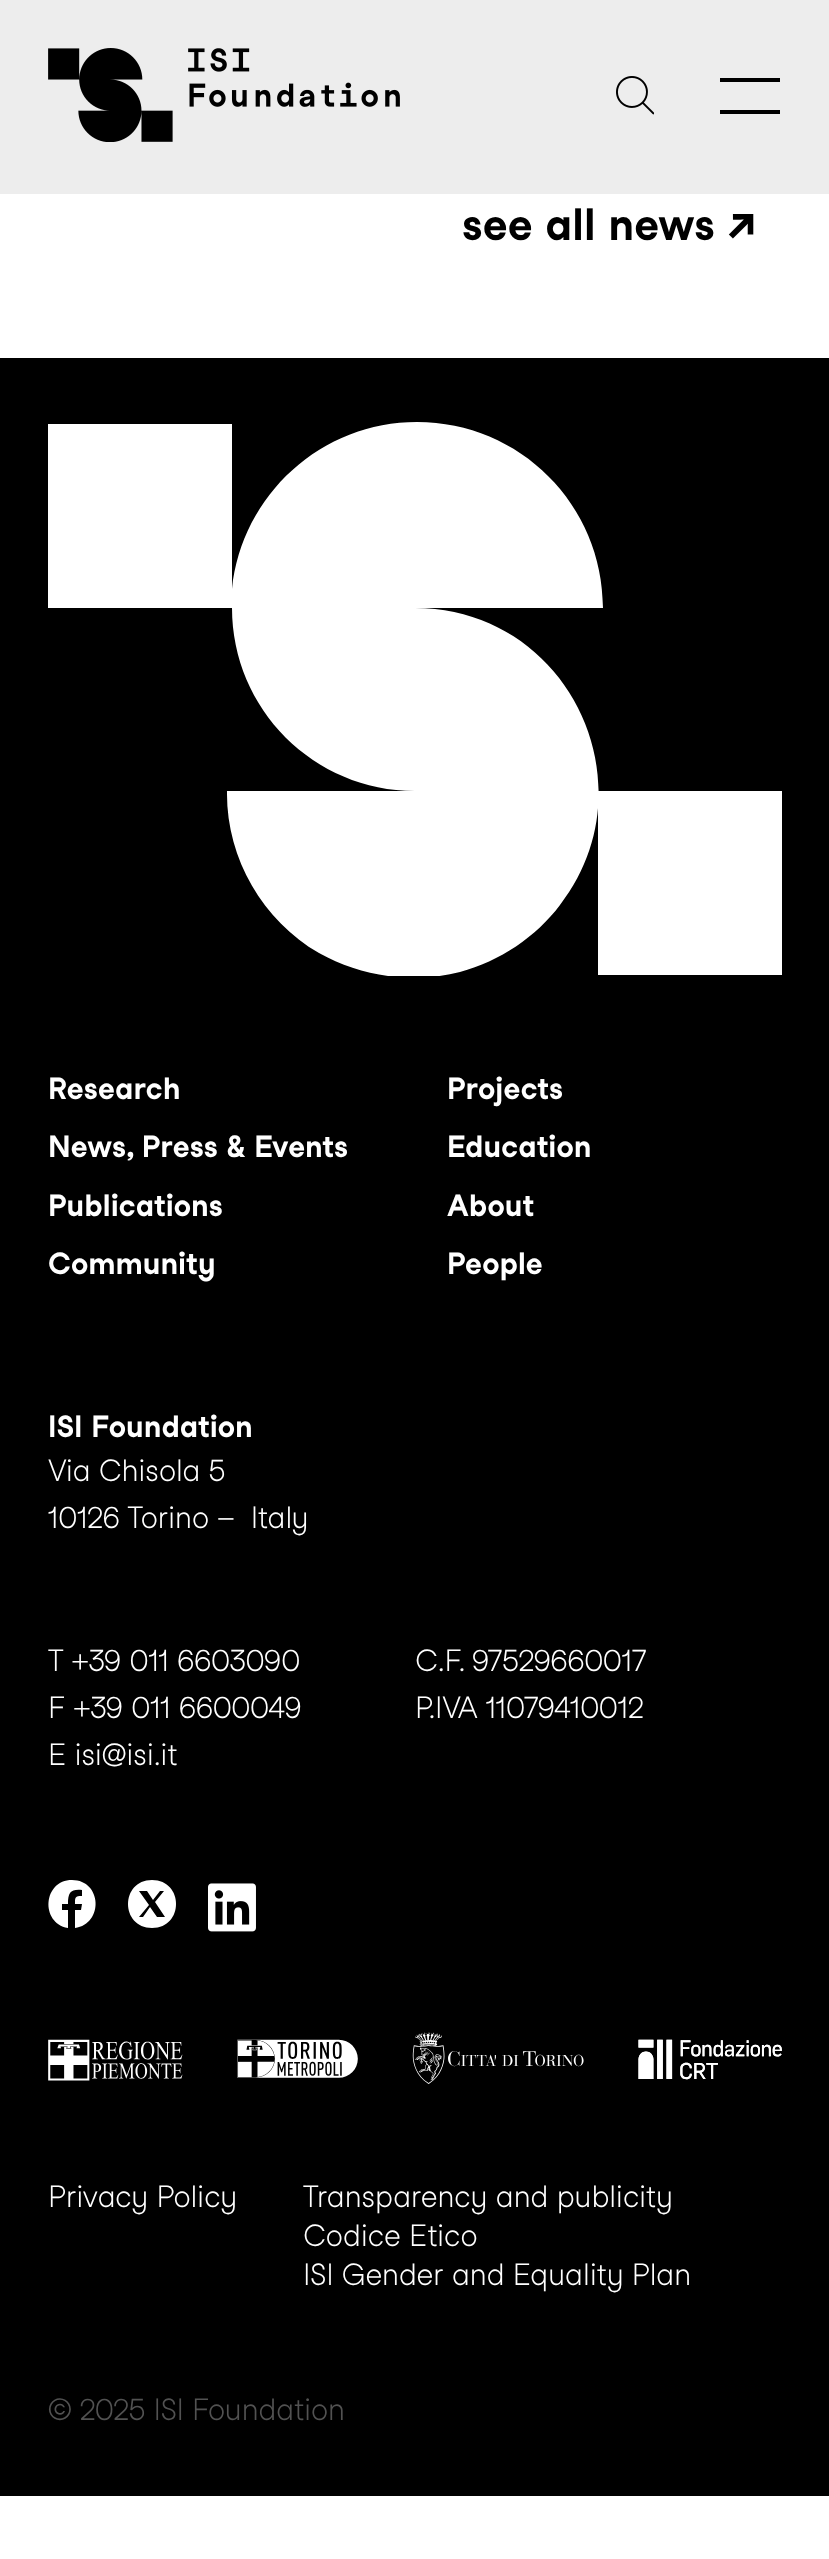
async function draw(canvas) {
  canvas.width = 829
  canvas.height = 2559
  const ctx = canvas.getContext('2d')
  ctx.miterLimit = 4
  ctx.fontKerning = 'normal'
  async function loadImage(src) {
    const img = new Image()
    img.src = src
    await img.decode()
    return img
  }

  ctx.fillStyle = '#fff'
  ctx.fillRect(0, 0, 829, 2559)
  ctx.fillStyle = '#ededed'
  ctx.fillRect(0, 0, 829, 194)
  ctx.drawImage(await loadImage('image0.png'), 48, 48, 352, 94)
  ctx.drawImage(await loadImage('image1.png'), 616, 76, 38, 39)
  ctx.fillStyle = '#000'
  ctx.fillRect(720, 78, 60, 4)
  ctx.fillRect(720, 110, 60, 4)
  ctx.letterSpacing = '-0.25px'
  ctx.font = 'bold 44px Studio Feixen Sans'
  ctx.fillText('see all news ↗', 462, 240)
  ctx.fillRect(0, 358, 829, 2138)
  ctx.save()
  ctx.beginPath()
  ctx.rect(48, 422, 734, 554)
  ctx.clip()
  ctx.fillStyle = '#fff'
  ctx.beginPath()
  ctx.moveTo(782, 791)
  ctx.lineTo(598, 791)
  ctx.lineTo(598, 975)
  ctx.lineTo(782, 975)
  ctx.closePath()
  ctx.moveTo(415, 608)
  ctx.lineTo(603, 608)
  ctx.bezierCurveTo(603, 505, 520, 422, 417, 422)
  ctx.bezierCurveTo(322, 422, 242, 494, 232, 589)
  ctx.lineTo(232, 608)
  ctx.lineTo(232, 424)
  ctx.lineTo(48, 424)
  ctx.lineTo(48, 608)
  ctx.lineTo(232, 608)
  ctx.bezierCurveTo(232, 709, 314, 791, 415, 791)
  ctx.lineTo(227, 791)
  ctx.bezierCurveTo(226, 857, 262, 920, 319, 953)
  ctx.bezierCurveTo(362, 977, 413, 984, 460, 972)
  ctx.bezierCurveTo(500, 961, 536, 937, 560, 905)
  ctx.bezierCurveTo(653, 784, 568, 608, 415, 608)
  ctx.closePath()
  ctx.fill()
  ctx.restore()
  ctx.letterSpacing = '0px'
  ctx.font = 'bold 30px Studio Feixen Sans'
  ctx.fillStyle = '#fff'
  ctx.fillText('Research', 48, 1099)
  ctx.fillText('Projects', 447, 1099)
  ctx.fillText('News, Press & Events', 48, 1157)
  ctx.fillText('Education', 447, 1157)
  ctx.fillText('Publications', 48, 1216)
  ctx.fillText('About', 447, 1216)
  ctx.fillText('Community', 48, 1274)
  ctx.fillText('People', 447, 1274)
  ctx.fillText('ISI Foundation', 48, 1437)
  ctx.letterSpacing = '-0.4px'
  ctx.font = '300 30px Studio Feixen Sans'
  ctx.fillText('Via Chisola 5', 48, 1481)
  ctx.fillText('10126 Torino –  Italy', 48, 1528)
  ctx.fillText('T +39 011 6603090', 48, 1671)
  ctx.fillText('F +39 011 6600049', 48, 1718)
  ctx.fillText('E isi@isi.it', 48, 1765)
  ctx.fillText('C.F. 97529660017', 415, 1671)
  ctx.fillText('P.IVA 11079410012', 415, 1718)
  ctx.beginPath()
  ctx.moveTo(72, 1880)
  ctx.bezierCurveTo(43, 1880, 40, 1923, 68, 1928)
  ctx.lineTo(68, 1910)
  ctx.lineTo(62, 1910)
  ctx.lineTo(62, 1904)
  ctx.lineTo(68, 1904)
  ctx.bezierCurveTo(68, 1892, 71, 1889, 82, 1890)
  ctx.lineTo(82, 1896)
  ctx.bezierCurveTo(75, 1896, 75, 1897, 75, 1904)
  ctx.lineTo(82, 1904)
  ctx.lineTo(81, 1910)
  ctx.lineTo(75, 1910)
  ctx.lineTo(75, 1928)
  ctx.bezierCurveTo(104, 1924, 102, 1880, 72, 1880)
  ctx.closePath()
  ctx.fill()
  ctx.beginPath()
  ctx.moveTo(152, 1880)
  ctx.bezierCurveTo(120, 1880, 120, 1928, 152, 1928)
  ctx.bezierCurveTo(184, 1928, 184, 1880, 152, 1880)
  ctx.closePath()
  ctx.moveTo(157, 1917)
  ctx.lineTo(150, 1907)
  ctx.lineTo(143, 1917)
  ctx.lineTo(139, 1917)
  ctx.lineTo(149, 1905)
  ctx.lineTo(139, 1891)
  ctx.lineTo(147, 1891)
  ctx.lineTo(153, 1900)
  ctx.lineTo(160, 1891)
  ctx.lineTo(164, 1891)
  ctx.lineTo(155, 1902)
  ctx.lineTo(165, 1917)
  ctx.closePath()
  ctx.fill()
  ctx.drawImage(await loadImage('image2.png'), 208, 1883, 48, 49)
  ctx.drawImage(await loadImage('image3.png'), 48, 2032, 734, 52)
  ctx.fillText('Privacy Policy', 48, 2207)
  ctx.fillText('Transparency and publicity', 303, 2207)
  ctx.fillText('Codice Etico', 303, 2246)
  ctx.fillText('ISI Gender and Equality Plan', 303, 2285)
  ctx.fillStyle = '#525252'
  ctx.fillText('© 2025 ISI Foundation', 48, 2420)
}

draw(document.querySelector('canvas'))
